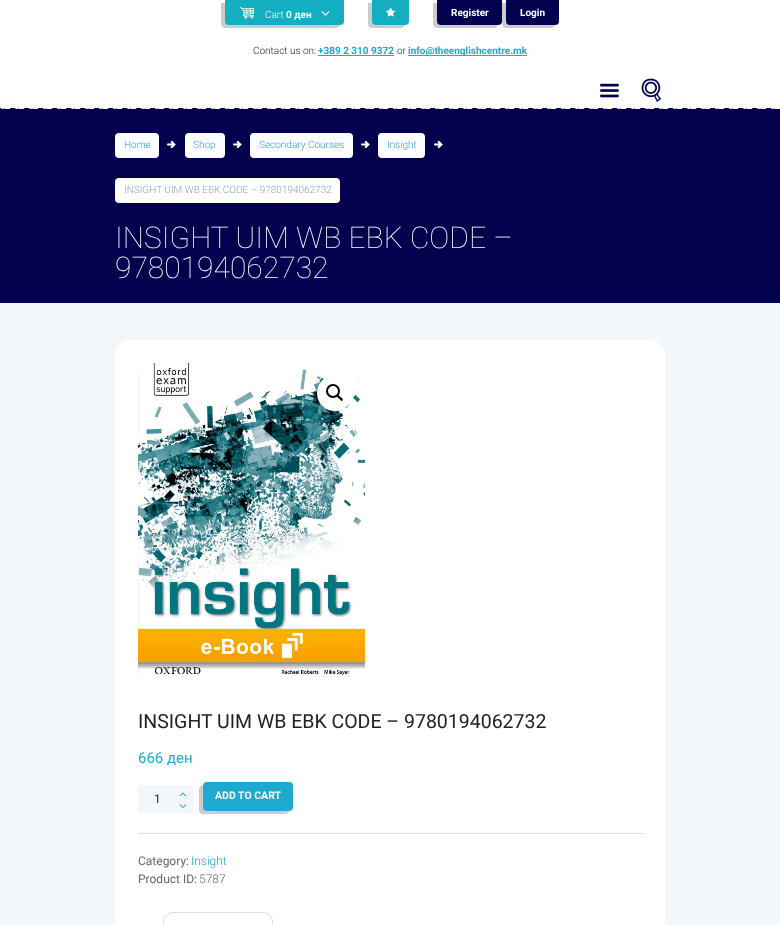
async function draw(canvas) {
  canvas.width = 780
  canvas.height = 925
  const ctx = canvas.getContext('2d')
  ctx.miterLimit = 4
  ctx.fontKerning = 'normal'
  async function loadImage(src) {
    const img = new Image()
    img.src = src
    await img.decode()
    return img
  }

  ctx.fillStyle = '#f4f7f9'
  ctx.fillRect(0, 0, 780, 925)
  ctx.fillStyle = '#fff'
  ctx.fillRect(0, 0, 780, 108)
  ctx.fillStyle = '#ccc'
  ctx.beginPath()
  ctx.moveTo(221, 3)
  ctx.lineTo(221, 24)
  ctx.bezierCurveTo(221, 26, 223, 28, 225, 28)
  ctx.lineTo(336, 28)
  ctx.bezierCurveTo(338, 28, 339, 27, 340, 25)
  ctx.lineTo(229, 25)
  ctx.bezierCurveTo(227, 25, 225, 23, 225, 21)
  ctx.lineTo(225, 3)
  ctx.closePath()
  ctx.fill()
  ctx.fillStyle = '#13afc1'
  ctx.beginPath()
  ctx.roundRect(225, 0, 119, 25, [0, 0, 4, 4])
  ctx.fill()
  ctx.drawImage(await loadImage('image0.png'), 239, 7, 15, 12)
  ctx.font = '300 10px Roboto'
  ctx.fillStyle = '#fff'
  ctx.fillText('Cart', 265, 18)
  ctx.font = 'bold 10px Roboto'
  ctx.fillText('0 ден', 286, 18)
  ctx.drawImage(await loadImage('image1.png'), 321, 11, 9, 5)
  ctx.fillStyle = '#ccc'
  ctx.beginPath()
  ctx.moveTo(368, 3)
  ctx.lineTo(368, 24)
  ctx.bezierCurveTo(368, 26, 370, 28, 372, 28)
  ctx.lineTo(401, 28)
  ctx.bezierCurveTo(403, 28, 404.5, 26.5, 405, 25)
  ctx.lineTo(376, 25)
  ctx.bezierCurveTo(374, 25, 372, 23, 372, 21)
  ctx.lineTo(372, 3)
  ctx.closePath()
  ctx.fill()
  ctx.fillStyle = '#13afc1'
  ctx.beginPath()
  ctx.roundRect(372, 0, 37, 25, [0, 0, 4, 4])
  ctx.fill()
  ctx.drawImage(await loadImage('image2.png'), 386, 7, 10, 10)
  ctx.fillStyle = '#ccc'
  ctx.beginPath()
  ctx.moveTo(433, 3)
  ctx.lineTo(433, 24)
  ctx.bezierCurveTo(433, 26, 435, 28, 437, 28)
  ctx.lineTo(494, 28)
  ctx.bezierCurveTo(496, 28, 497, 27, 498, 25)
  ctx.lineTo(441, 25)
  ctx.bezierCurveTo(439, 25, 437, 23, 437, 21)
  ctx.lineTo(437, 3)
  ctx.closePath()
  ctx.fill()
  ctx.fillStyle = '#03004e'
  ctx.beginPath()
  ctx.roundRect(437, 0, 65, 25, [0, 0, 4, 4])
  ctx.fill()
  ctx.fillStyle = '#fff'
  ctx.fillText('Register', 451, 16)
  ctx.fillStyle = '#ccc'
  ctx.beginPath()
  ctx.moveTo(502, 3)
  ctx.lineTo(502, 24)
  ctx.bezierCurveTo(502, 26, 504, 28, 506, 28)
  ctx.lineTo(551, 28)
  ctx.bezierCurveTo(553, 28, 554, 27, 555, 25)
  ctx.lineTo(510, 25)
  ctx.bezierCurveTo(508, 25, 506, 23, 506, 21)
  ctx.lineTo(506, 3)
  ctx.closePath()
  ctx.fill()
  ctx.fillStyle = '#03004e'
  ctx.beginPath()
  ctx.roundRect(506, 0, 53, 25, [0, 0, 4, 4])
  ctx.fill()
  ctx.fillStyle = '#fff'
  ctx.fillText('Login', 520, 16)
  ctx.font = '300 10px Roboto'
  ctx.fillStyle = '#222'
  ctx.fillText('Contact us on:', 253, 54)
  ctx.font = 'bold 10px Roboto'
  ctx.fillStyle = '#1eaace'
  ctx.fillText('+389 2 310 9372', 318, 54)
  ctx.fillRect(318, 55, 76, 1)
  ctx.font = '300 10px Roboto'
  ctx.fillStyle = '#222'
  ctx.fillText('or', 397, 54)
  ctx.fillStyle = '#1eaace'
  ctx.fillRect(408, 55, 119, 1)
  ctx.font = 'bold 10px Roboto'
  ctx.fillText('info@theenglishcentre.mk', 408, 54)
  ctx.drawImage(await loadImage('image3.png'), 600, 83, 19, 15)
  ctx.drawImage(await loadImage('image4.png'), 641, 78, 20, 24)
  ctx.fillStyle = '#03004e'
  ctx.fillRect(0, 108, 780, 195)
  ctx.drawImage(await loadImage('image5.png'), 0, 108, 780, 1)
  ctx.fillStyle = '#fff'
  ctx.beginPath()
  ctx.roundRect(115, 133, 44, 25, 4)
  ctx.fill()
  ctx.font = '300 10px Roboto'
  ctx.fillStyle = '#1eaace'
  ctx.fillText('Home', 124, 148)
  ctx.drawImage(await loadImage('image6.png'), 167, 140, 9, 9)
  ctx.fillStyle = '#fff'
  ctx.beginPath()
  ctx.roundRect(185, 133, 40, 25, 4)
  ctx.fill()
  ctx.fillStyle = '#1eaace'
  ctx.fillText('Shop', 193, 148)
  ctx.drawImage(await loadImage('image6.png'), 233, 140, 9, 9)
  ctx.fillStyle = '#fff'
  ctx.beginPath()
  ctx.roundRect(250, 133, 103, 25, 4)
  ctx.fill()
  ctx.fillStyle = '#1eaace'
  ctx.fillText('Secondary Courses', 259, 148)
  ctx.drawImage(await loadImage('image6.png'), 361, 140, 9, 9)
  ctx.fillStyle = '#fff'
  ctx.beginPath()
  ctx.roundRect(378, 133, 47, 25, 4)
  ctx.fill()
  ctx.fillStyle = '#1eaace'
  ctx.fillText('Insight', 387, 148)
  ctx.drawImage(await loadImage('image6.png'), 434, 140, 9, 9)
  ctx.fillStyle = '#fff'
  ctx.beginPath()
  ctx.roundRect(115, 178, 225, 25, 4)
  ctx.fill()
  ctx.fillStyle = '#98a3a9'
  ctx.fillText('INSIGHT UIM WB EBK CODE – 9780194062732', 124, 193)
  ctx.font = '100 30px Roboto'
  ctx.fillStyle = '#fff'
  ctx.fillText('INSIGHT UIM WB EBK CODE –', 115, 248)
  ctx.fillText('9780194062732', 115, 278)
  ctx.beginPath()
  ctx.roundRect(115, 340, 550, 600, 15)
  ctx.fill()
  ctx.drawImage(await loadImage('image7.png'), 138, 363, 227, 315)
  ctx.beginPath()
  ctx.arc(335, 393, 18, 0, 2 * Math.PI)
  ctx.fill()
  ctx.beginPath()
  ctx.arc(333, 391, 6, 0, 2 * Math.PI)
  ctx.strokeStyle = '#000'
  ctx.lineWidth = 2
  ctx.stroke()
  ctx.fillStyle = '#000'
  ctx.beginPath()
  ctx.moveTo(337, 395)
  ctx.bezierCurveTo(338, 394, 340, 396.5, 340.5, 397)
  ctx.bezierCurveTo(341, 397.5, 344, 399.5, 342.5, 400.5)
  ctx.bezierCurveTo(341.5, 402, 339.5, 399, 339, 398.5)
  ctx.bezierCurveTo(338.5, 398, 335.5, 396, 337, 395)
  ctx.closePath()
  ctx.fill()
  ctx.font = '19.5px Roboto'
  ctx.fillStyle = '#222'
  ctx.fillText('INSIGHT UIM WB EBK CODE – 9780194062732', 138, 728)
  ctx.font = '15px Roboto'
  ctx.fillStyle = '#1eaace'
  ctx.fillText('666 ден', 138, 763)
  ctx.fillStyle = '#ddd'
  ctx.fillRect(138, 833, 505, 1)
  ctx.fillStyle = '#f4f7f9'
  ctx.beginPath()
  ctx.roundRect(138, 785, 55, 28, 4)
  ctx.fill()
  ctx.fillRect(190, 785, 3, 3)
  ctx.drawImage(await loadImage('image8.png'), 179, 792, 8, 5)
  ctx.font = '12px Roboto'
  ctx.fillStyle = '#222'
  ctx.fillText('1', 154, 803)
  ctx.drawImage(await loadImage('image9.png'), 179, 804, 8, 4)
  ctx.fillStyle = '#ccc'
  ctx.beginPath()
  ctx.moveTo(203, 785)
  ctx.bezierCurveTo(201, 785, 199, 787, 199, 789)
  ctx.lineTo(199, 810)
  ctx.bezierCurveTo(199, 812, 201, 814, 203, 814)
  ctx.lineTo(285, 814)
  ctx.bezierCurveTo(287, 814, 288, 813, 289, 811)
  ctx.lineTo(221, 811)
  ctx.bezierCurveTo(204, 811, 203, 814, 203, 800)
  ctx.closePath()
  ctx.fill()
  ctx.fillStyle = '#1eaace'
  ctx.beginPath()
  ctx.roundRect(203, 782, 90, 29, 4)
  ctx.fill()
  ctx.font = 'bold 10.5px Roboto'
  ctx.fillStyle = '#fff'
  ctx.fillText('ADD TO CART', 215, 799)
  ctx.font = '12px Roboto'
  ctx.fillStyle = '#666'
  ctx.fillText('Category:', 138, 865)
  ctx.font = '300 12px Roboto'
  ctx.fillStyle = '#1eaace'
  ctx.fillText('Insight', 191, 865)
  ctx.font = '12px Roboto'
  ctx.fillStyle = '#666'
  ctx.fillText('Product ID:', 138, 883)
  ctx.font = '300 12px Roboto'
  ctx.fillText('5787', 199, 883)
  ctx.fillStyle = '#ddd'
  ctx.beginPath()
  ctx.moveTo(173, 912)
  ctx.bezierCurveTo(170, 912, 168, 913, 166, 915)
  ctx.lineTo(167, 916)
  ctx.bezierCurveTo(168, 914, 170, 913, 173, 913)
  ctx.lineTo(263, 913)
  ctx.bezierCurveTo(266, 913, 268, 914, 269, 916)
  ctx.lineTo(270, 915)
  ctx.bezierCurveTo(268, 913, 266, 912, 263, 912)
  ctx.closePath()
  ctx.fill()
  ctx.beginPath()
  ctx.moveTo(273, 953)
  ctx.lineTo(273, 922)
  ctx.bezierCurveTo(273, 919, 272, 916.5, 270, 915)
  ctx.lineTo(269.5, 915.5)
  ctx.bezierCurveTo(271, 917, 272, 919.5, 272, 922)
  ctx.lineTo(272, 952)
  ctx.closePath()
  ctx.fill()
  ctx.beginPath()
  ctx.moveTo(163, 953)
  ctx.lineTo(164, 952)
  ctx.lineTo(164, 922)
  ctx.bezierCurveTo(164, 919.5, 165, 917, 166.5, 915.5)
  ctx.lineTo(166, 915)
  ctx.bezierCurveTo(164, 916.5, 163, 919, 163, 922)
  ctx.closePath()
  ctx.fill()
}

draw(document.querySelector('canvas'))
